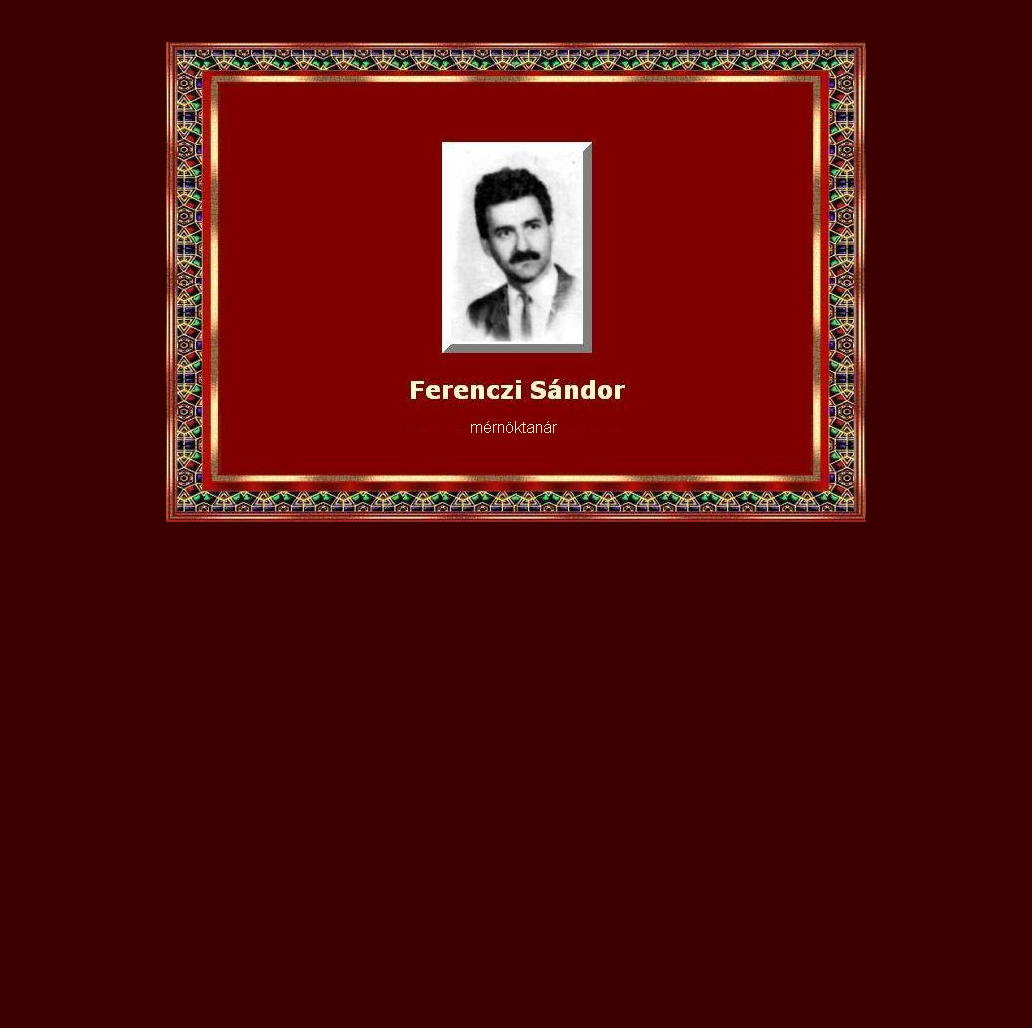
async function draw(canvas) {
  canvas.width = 1032
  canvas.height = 1028
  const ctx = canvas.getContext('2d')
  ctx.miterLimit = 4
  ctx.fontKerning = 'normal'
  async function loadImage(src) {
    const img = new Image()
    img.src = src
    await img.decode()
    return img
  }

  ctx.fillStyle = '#3c0000'
  ctx.fillRect(0, 0, 1032, 1028)
  ctx.drawImage(await loadImage('image0.png'), 166, 42, 700, 480)
}

draw(document.querySelector('canvas'))
